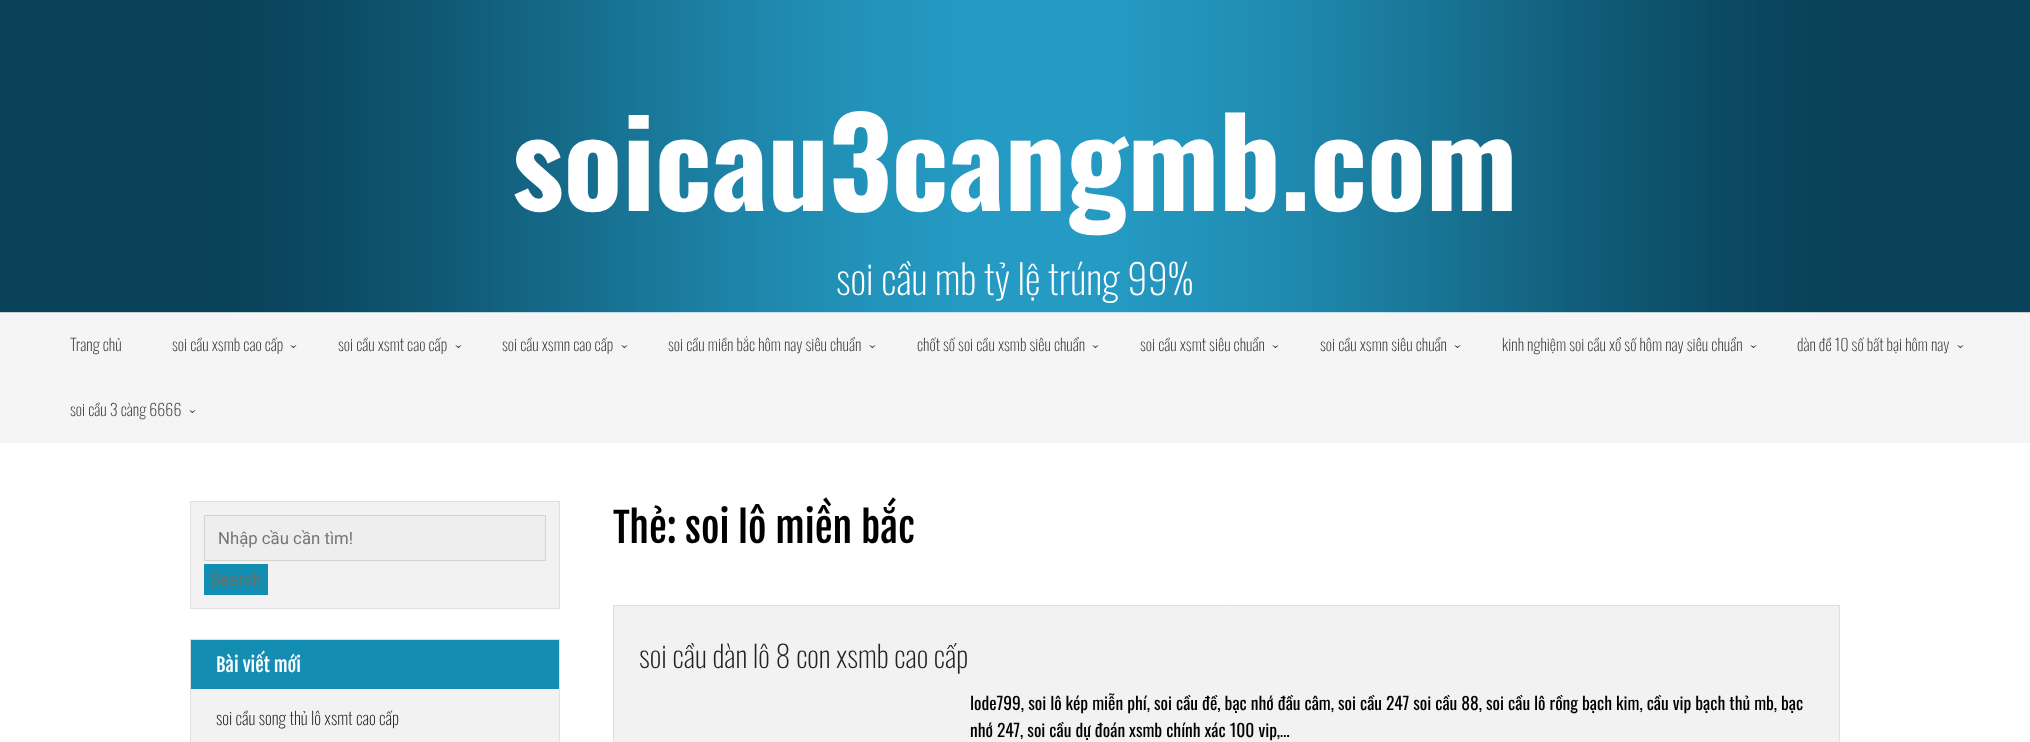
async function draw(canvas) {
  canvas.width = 2030
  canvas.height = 742
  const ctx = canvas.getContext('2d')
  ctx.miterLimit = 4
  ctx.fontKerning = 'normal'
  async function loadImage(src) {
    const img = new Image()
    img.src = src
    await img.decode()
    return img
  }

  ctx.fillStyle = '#fff'
  ctx.fillRect(0, 0, 2030, 742)
  ctx.drawImage(await loadImage('image0.png'), 0, 0, 2030, 313)
  ctx.font = 'bold 121.75px Oswald'
  ctx.fillText('soicau3cangmb.com', 512, 211)
  ctx.font = '200 40.5px Oswald'
  ctx.fillText('soi cầu mb tỷ lệ trúng 99%', 836, 295)
  ctx.fillStyle = '#f5f5f5'
  ctx.fillRect(0, 313, 2030, 130)
  ctx.font = '200 16.25px Oswald'
  ctx.fillStyle = '#333'
  ctx.fillText('Trang chủ', 70, 351)
  ctx.fillText('soi cầu xsmb cao cấp', 172, 351)
  ctx.font = '15px Liberation Serif'
  ctx.save()
  ctx.translate(290, 344)
  ctx.rotate(90 * Math.PI / 180)
  ctx.fillText('›', 0, 0)
  ctx.restore()
  ctx.font = '200 16.25px Oswald'
  ctx.fillText('soi cầu xsmt cao cấp', 338, 351)
  ctx.font = '15px Liberation Serif'
  ctx.save()
  ctx.translate(455, 344)
  ctx.rotate(90 * Math.PI / 180)
  ctx.fillText('›', 0, 0)
  ctx.restore()
  ctx.font = '200 16.25px Oswald'
  ctx.fillText('soi cầu xsmn cao cấp', 502, 351)
  ctx.font = '15px Liberation Serif'
  ctx.save()
  ctx.translate(621, 344)
  ctx.rotate(90 * Math.PI / 180)
  ctx.fillText('›', 0, 0)
  ctx.restore()
  ctx.font = '200 16.25px Oswald'
  ctx.fillText('soi cầu miền bắc hôm nay siêu chuẩn', 668, 351)
  ctx.font = '15px Liberation Serif'
  ctx.save()
  ctx.translate(869, 344)
  ctx.rotate(90 * Math.PI / 180)
  ctx.fillText('›', 0, 0)
  ctx.restore()
  ctx.font = '200 16.25px Oswald'
  ctx.fillText('chốt số soi cầu xsmb siêu chuẩn', 917, 351)
  ctx.font = '15px Liberation Serif'
  ctx.save()
  ctx.translate(1092, 344)
  ctx.rotate(90 * Math.PI / 180)
  ctx.fillText('›', 0, 0)
  ctx.restore()
  ctx.font = '200 16.25px Oswald'
  ctx.fillText('soi cầu xsmt siêu chuẩn', 1140, 351)
  ctx.font = '15px Liberation Serif'
  ctx.save()
  ctx.translate(1272, 344)
  ctx.rotate(90 * Math.PI / 180)
  ctx.fillText('›', 0, 0)
  ctx.restore()
  ctx.font = '200 16.25px Oswald'
  ctx.fillText('soi cầu xsmn siêu chuẩn', 1320, 351)
  ctx.font = '15px Liberation Serif'
  ctx.save()
  ctx.translate(1454, 344)
  ctx.rotate(90 * Math.PI / 180)
  ctx.fillText('›', 0, 0)
  ctx.restore()
  ctx.font = '200 16.25px Oswald'
  ctx.fillText('kinh nghiệm soi cầu xổ số hôm nay siêu chuẩn', 1502, 351)
  ctx.font = '15px Liberation Serif'
  ctx.save()
  ctx.translate(1750, 344)
  ctx.rotate(90 * Math.PI / 180)
  ctx.fillText('›', 0, 0)
  ctx.restore()
  ctx.font = '200 16.25px Oswald'
  ctx.fillText('dàn đề 10 số bất bại hôm nay', 1797, 351)
  ctx.font = '15px Liberation Serif'
  ctx.save()
  ctx.translate(1957, 344)
  ctx.rotate(90 * Math.PI / 180)
  ctx.fillText('›', 0, 0)
  ctx.restore()
  ctx.font = '200 16.25px Oswald'
  ctx.fillText('soi cầu 3 càng 6666', 70, 416)
  ctx.font = '15px Liberation Serif'
  ctx.save()
  ctx.translate(189, 409)
  ctx.rotate(90 * Math.PI / 180)
  ctx.fillText('›', 0, 0)
  ctx.restore()
  ctx.fillStyle = '#f2f2f2'
  ctx.beginPath()
  ctx.rect(190.5, 501.5, 369, 107)
  ctx.fill()
  ctx.strokeStyle = '#dee0db'
  ctx.stroke()
  ctx.fillStyle = '#eee'
  ctx.beginPath()
  ctx.rect(204.5, 515.5, 341, 45)
  ctx.fill()
  ctx.strokeStyle = '#d2d3cd'
  ctx.stroke()
  ctx.font = '16.75px Roboto'
  ctx.fillStyle = '#757575'
  ctx.fillText('Nhập cầu cần tìm!', 218, 544)
  ctx.fillStyle = '#148db3'
  ctx.fillRect(204, 564, 64, 31)
  ctx.fillStyle = '#6d705e'
  ctx.fillText('Search', 210, 585)
  ctx.fillStyle = '#f2f2f2'
  ctx.fillRect(191, 689, 368, 53)
  ctx.strokeStyle = '#dee0db'
  ctx.strokeRect(190.5, 639.5, 369, 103)
  ctx.fillStyle = '#148db3'
  ctx.fillRect(191, 640, 368, 49)
  ctx.font = '18.75px Fjalla One'
  ctx.fillStyle = '#fff'
  ctx.fillText('Bài viết mới', 216, 672)
  ctx.font = '200 17.5px Oswald'
  ctx.fillStyle = '#222'
  ctx.fillText('soi cầu song thủ lô xsmt cao cấp', 216, 725)
  ctx.font = '40px Fjalla One'
  ctx.fillStyle = '#000'
  ctx.fillText('Thẻ: soi lô miền bắc', 613, 543)
  ctx.fillStyle = '#f2f2f2'
  ctx.beginPath()
  ctx.rect(613.5, 605.5, 1226, 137)
  ctx.fill()
  ctx.stroke()
  ctx.font = '200 30px Oswald'
  ctx.fillStyle = '#222'
  ctx.fillText('soi cầu dàn lô 8 con xsmb cao cấp', 639, 668)
  ctx.font = '17.5px Oswald'
  ctx.fillStyle = '#000'
  ctx.fillText('lode799, soi lô kép miễn phí, soi cầu đề, bạc nhớ đầu câm, soi cầu 247 soi cầu 88, soi cầu lô rồng bạch kim, cầu vip bạch thủ mb, bạc', 970, 710)
  ctx.fillText('nhớ 247, soi cầu dự đoán xsmb chính xác 100 vip,…', 970, 737)
}

draw(document.querySelector('canvas'))
